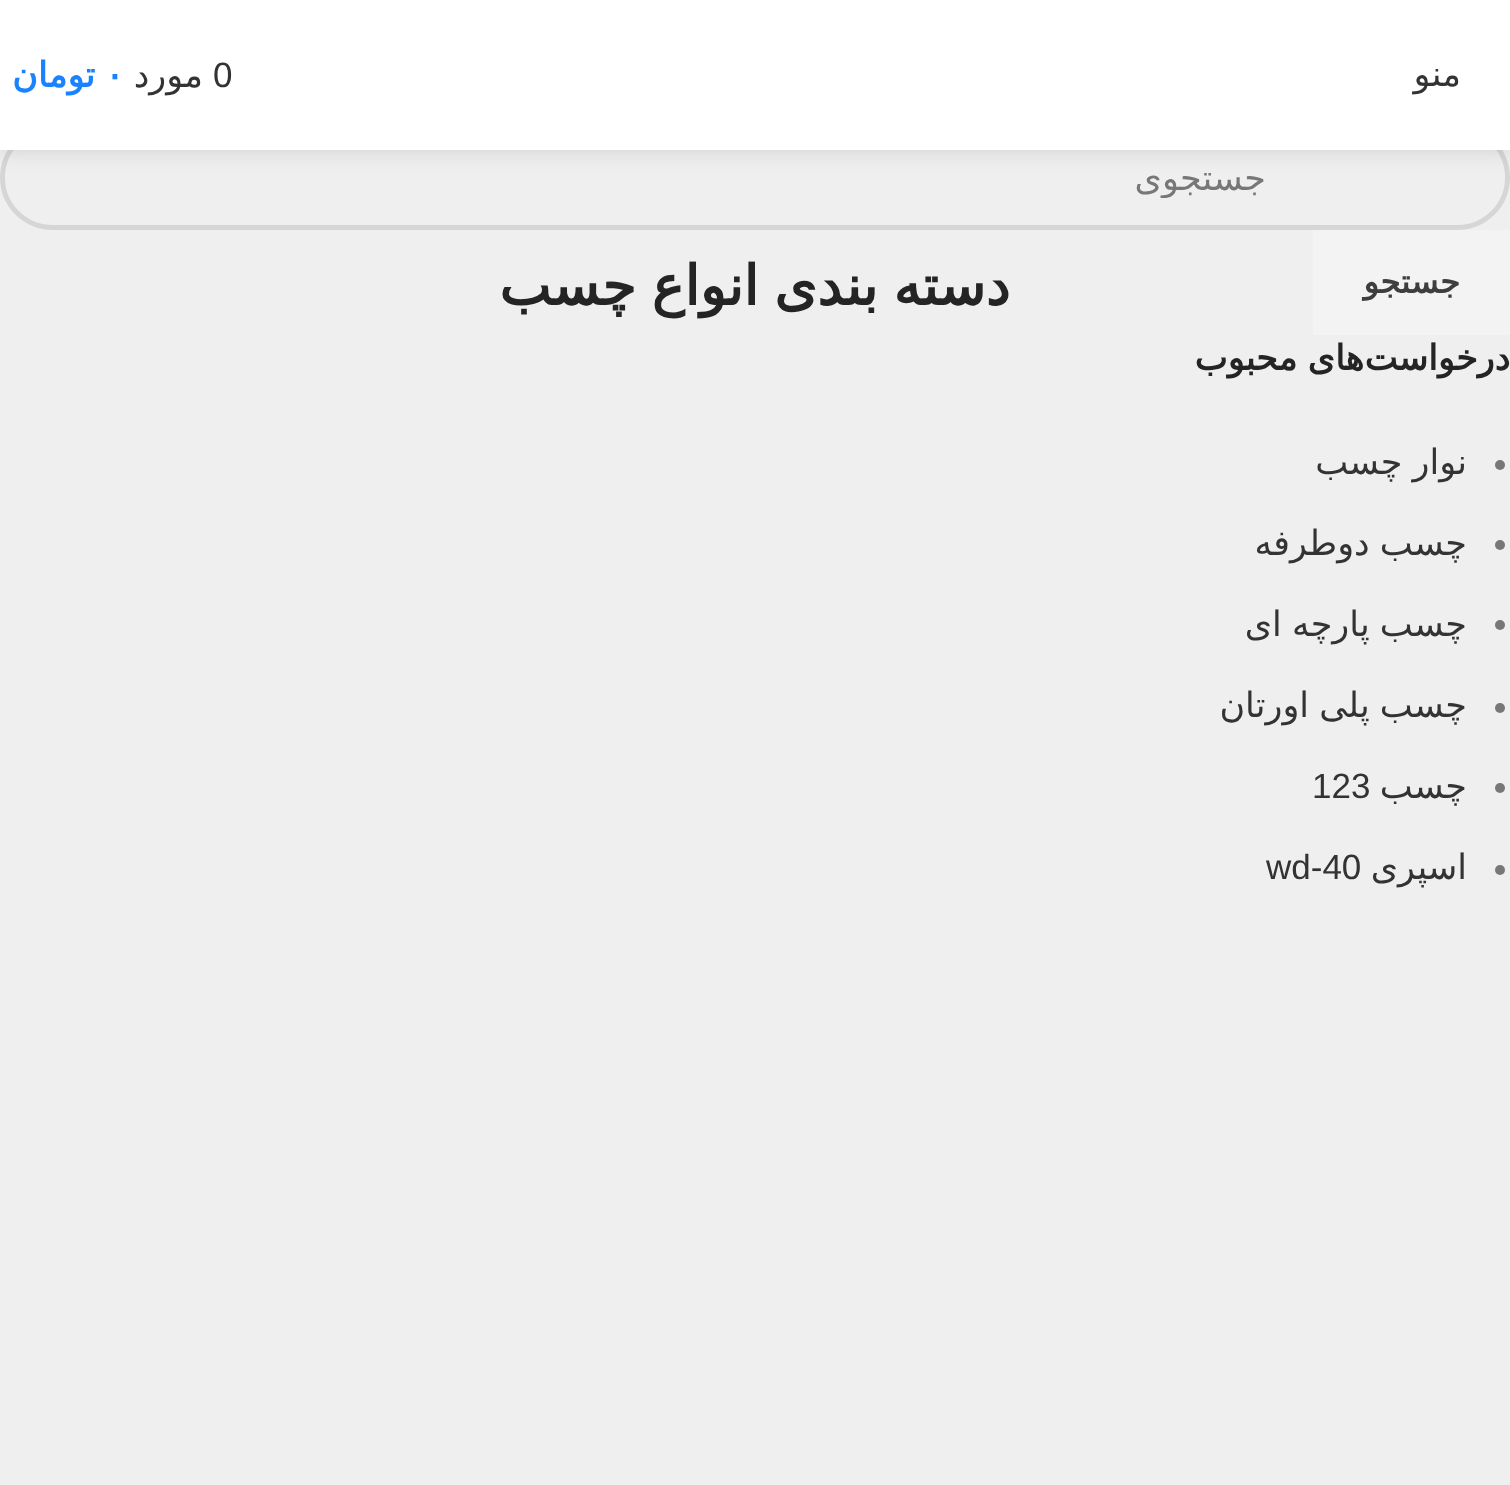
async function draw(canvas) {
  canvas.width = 1510
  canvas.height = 1485
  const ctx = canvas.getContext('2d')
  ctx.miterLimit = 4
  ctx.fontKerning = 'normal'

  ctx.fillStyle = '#efefef'
  ctx.fillRect(0, 0, 1510, 1485)
  ctx.beginPath()
  ctx.roundRect(2.5, 127.5, 1505, 100, 50)
  ctx.strokeStyle = '#0000001a'
  ctx.lineWidth = 5
  ctx.stroke()
  ctx.fillStyle = '#0000001a'
  ctx.filter = 'blur(10px)'
  ctx.beginPath()
  ctx.rect(0, 3, 1510, 150)
  ctx.fill()
  ctx.filter = 'none'
  ctx.fillStyle = '#fff'
  ctx.fillRect(0, 0, 1510, 150)
  ctx.direction = 'rtl'
  ctx.font = '35px DejaVu Sans'
  ctx.fillStyle = '#333'
  ctx.fillText('منو', 1461, 86)
  ctx.direction = 'ltr'
  ctx.font = '35px Liberation Sans'
  ctx.fillText('0', 213, 87)
  ctx.direction = 'rtl'
  ctx.font = '35px DejaVu Sans'
  ctx.fillText('مورد', 203, 87)
  ctx.direction = 'ltr'
  ctx.font = 'bold 35px DejaVu Sans'
  ctx.fillStyle = '#1982ff'
  ctx.fillText('۰', 105, 87)
  ctx.direction = 'rtl'
  ctx.fillText('تومان', 95, 87)
  ctx.wordSpacing = '-2px'
  ctx.font = 'bold 55px DejaVu Sans'
  ctx.fillStyle = '#242424'
  ctx.fillText('دسته بندی انواع چسب', 1010, 305)
  ctx.save()
  ctx.beginPath()
  ctx.rect(43, 158, 1425, 40)
  ctx.clip()
  ctx.wordSpacing = '0px'
  ctx.font = '35px DejaVu Sans'
  ctx.fillStyle = '#777'
  ctx.fillText('جستجوی', 1266, 190)
  ctx.restore()
  ctx.fillStyle = '#f3f3f3'
  ctx.fillRect(1313, 230, 197, 105)
  ctx.wordSpacing = '0px'
  ctx.font = 'bold 32.5px DejaVu Sans'
  ctx.fillStyle = '#3e3e3e'
  ctx.fillText('جستجو', 1460, 293)
  ctx.font = 'bold 35px DejaVu Sans'
  ctx.fillStyle = '#242424'
  ctx.fillText('درخواست', 1510, 370)
  ctx.wordSpacing = '-1px'
  ctx.fillText('های محبوب', 1364, 370)
  ctx.fillStyle = '#777'
  ctx.beginPath()
  ctx.arc(1500, 465, 5, 0, 2 * Math.PI)
  ctx.fill()
  ctx.font = '35px DejaVu Sans'
  ctx.fillStyle = '#333'
  ctx.fillText('نوار چسب', 1467, 474)
  ctx.fillStyle = '#777'
  ctx.beginPath()
  ctx.arc(1500, 545, 5, 0, 2 * Math.PI)
  ctx.fill()
  ctx.fillStyle = '#333'
  ctx.fillText('چسب دوطرفه', 1467, 555)
  ctx.fillStyle = '#777'
  ctx.beginPath()
  ctx.arc(1500, 625, 5, 0, 2 * Math.PI)
  ctx.fill()
  ctx.fillStyle = '#333'
  ctx.fillText('چسب پارچه ای', 1467, 636)
  ctx.fillStyle = '#777'
  ctx.beginPath()
  ctx.arc(1500, 708, 5, 0, 2 * Math.PI)
  ctx.fill()
  ctx.fillStyle = '#333'
  ctx.fillText('چسب پلی اورتان', 1467, 717)
  ctx.fillStyle = '#777'
  ctx.beginPath()
  ctx.arc(1500, 788, 5, 0, 2 * Math.PI)
  ctx.fill()
  ctx.wordSpacing = '0px'
  ctx.fillStyle = '#333'
  ctx.fillText('چسب', 1467, 798)
  ctx.direction = 'ltr'
  ctx.font = '35px Liberation Sans'
  ctx.fillText('123', 1312, 798)
  ctx.fillStyle = '#777'
  ctx.beginPath()
  ctx.arc(1500, 870, 5, 0, 2 * Math.PI)
  ctx.fill()
  ctx.direction = 'rtl'
  ctx.font = '35px DejaVu Sans'
  ctx.fillStyle = '#333'
  ctx.fillText('اسپری', 1467, 879)
  ctx.direction = 'ltr'
  ctx.font = '35px Liberation Sans'
  ctx.fillText('wd-40', 1266, 879)
}

draw(document.querySelector('canvas'))
